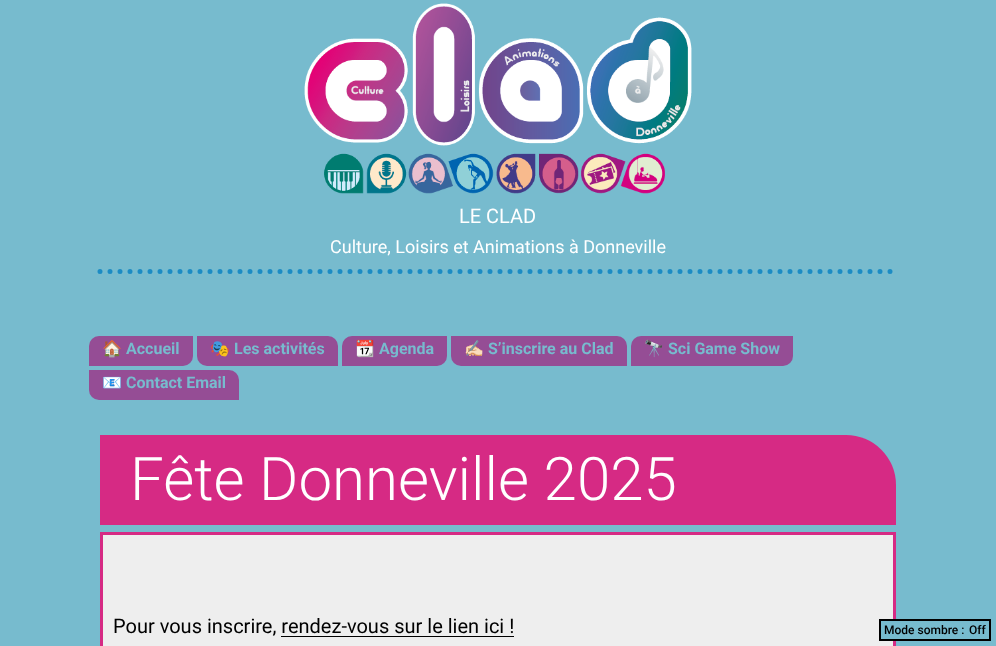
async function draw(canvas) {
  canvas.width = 996
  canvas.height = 646
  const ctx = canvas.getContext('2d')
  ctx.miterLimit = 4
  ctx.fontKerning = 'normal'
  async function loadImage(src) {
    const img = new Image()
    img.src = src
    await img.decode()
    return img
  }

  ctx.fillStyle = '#77bbce'
  ctx.fillRect(0, 0, 996, 646)
  ctx.drawImage(await loadImage('image0.png'), 304, 3, 388, 191)
  ctx.beginPath()
  ctx.moveTo(100, 271.5)
  ctx.lineTo(896, 271.5)
  ctx.strokeStyle = '#1c8cc4'
  ctx.lineWidth = 5
  ctx.lineCap = 'round'
  ctx.setLineDash([0, 10])
  ctx.stroke()
  ctx.font = '20px Roboto'
  ctx.fillStyle = '#fff'
  ctx.fillText('LE CLAD', 459, 223)
  ctx.font = '18px Roboto'
  ctx.fillText('Culture, Loisirs et Animations à Donneville', 330, 253)
  ctx.fillStyle = '#954d95'
  ctx.beginPath()
  ctx.roundRect(89, 336, 104, 30, [10, 0, 10, 0])
  ctx.fill()
  ctx.font = 'bold 16px Noto Color Emoji'
  ctx.fillStyle = '#77bbce'
  ctx.fillText('🏠', 102, 354)
  ctx.font = 'bold 16px Roboto'
  ctx.fillText('Accueil', 126, 354)
  ctx.fillStyle = '#954d95'
  ctx.beginPath()
  ctx.roundRect(197, 336, 141, 30, [0, 10, 0, 10])
  ctx.fill()
  ctx.font = 'bold 16px Noto Color Emoji'
  ctx.fillStyle = '#77bbce'
  ctx.fillText('🎭', 210, 354)
  ctx.font = 'bold 16px Roboto'
  ctx.fillText('Les activités', 234, 354)
  ctx.fillStyle = '#954d95'
  ctx.beginPath()
  ctx.roundRect(342, 336, 105, 30, [10, 0, 10, 0])
  ctx.fill()
  ctx.font = 'bold 16px Noto Color Emoji'
  ctx.fillStyle = '#77bbce'
  ctx.fillText('📆', 355, 354)
  ctx.font = 'bold 16px Roboto'
  ctx.fillText('Agenda', 379, 354)
  ctx.fillStyle = '#954d95'
  ctx.beginPath()
  ctx.roundRect(451, 336, 176, 30, [0, 10, 0, 10])
  ctx.fill()
  ctx.font = 'bold 16px Noto Color Emoji'
  ctx.fillStyle = '#77bbce'
  ctx.fillText('✍🏻', 464, 354)
  ctx.font = 'bold 16px Roboto'
  ctx.fillText('S’inscrire au Clad', 488, 354)
  ctx.fillStyle = '#954d95'
  ctx.beginPath()
  ctx.roundRect(631, 336, 162, 30, [10, 0, 10, 0])
  ctx.fill()
  ctx.font = 'bold 16px Noto Color Emoji'
  ctx.fillStyle = '#77bbce'
  ctx.fillText('🔭', 644, 354)
  ctx.font = 'bold 16px Roboto'
  ctx.fillText('Sci Game Show', 668, 354)
  ctx.fillStyle = '#954d95'
  ctx.beginPath()
  ctx.roundRect(89, 370, 150, 30, [0, 10, 0, 10])
  ctx.fill()
  ctx.font = 'bold 16px Noto Color Emoji'
  ctx.fillStyle = '#77bbce'
  ctx.fillText('📧', 102, 388)
  ctx.font = 'bold 16px Roboto'
  ctx.fillText('Contact Email', 126, 388)
  ctx.fillStyle = '#d62a84'
  ctx.beginPath()
  ctx.roundRect(100, 435, 796, 90, [0, 50, 0, 0])
  ctx.fill()
  ctx.font = '300 60px Roboto'
  ctx.fillStyle = '#fff'
  ctx.fillText('Fête Donneville 2025', 130, 500)
  ctx.fillStyle = '#eee'
  ctx.beginPath()
  ctx.rect(101.5, 533.5, 793, 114)
  ctx.fill()
  ctx.strokeStyle = '#d62a84'
  ctx.lineWidth = 3
  ctx.setLineDash([])
  ctx.stroke()
  ctx.font = '20px Roboto'
  ctx.fillStyle = '#000'
  ctx.fillText('Pour vous inscrire, rendez-vous sur le lien ici !', 113, 633)
  ctx.fillRect(281, 636, 233, 1)
  ctx.fillStyle = '#77bbce'
  ctx.fillRect(881, 621, 15, 18)
  ctx.strokeStyle = '#000'
  ctx.lineWidth = 2
  ctx.strokeRect(880, 620, 110, 20)
  ctx.font = '500 12px Roboto'
  ctx.fillStyle = '#000'
  ctx.fillText('Mode sombre :', 884, 634)
  ctx.fillText('Off', 969, 634)
}

draw(document.querySelector('canvas'))
